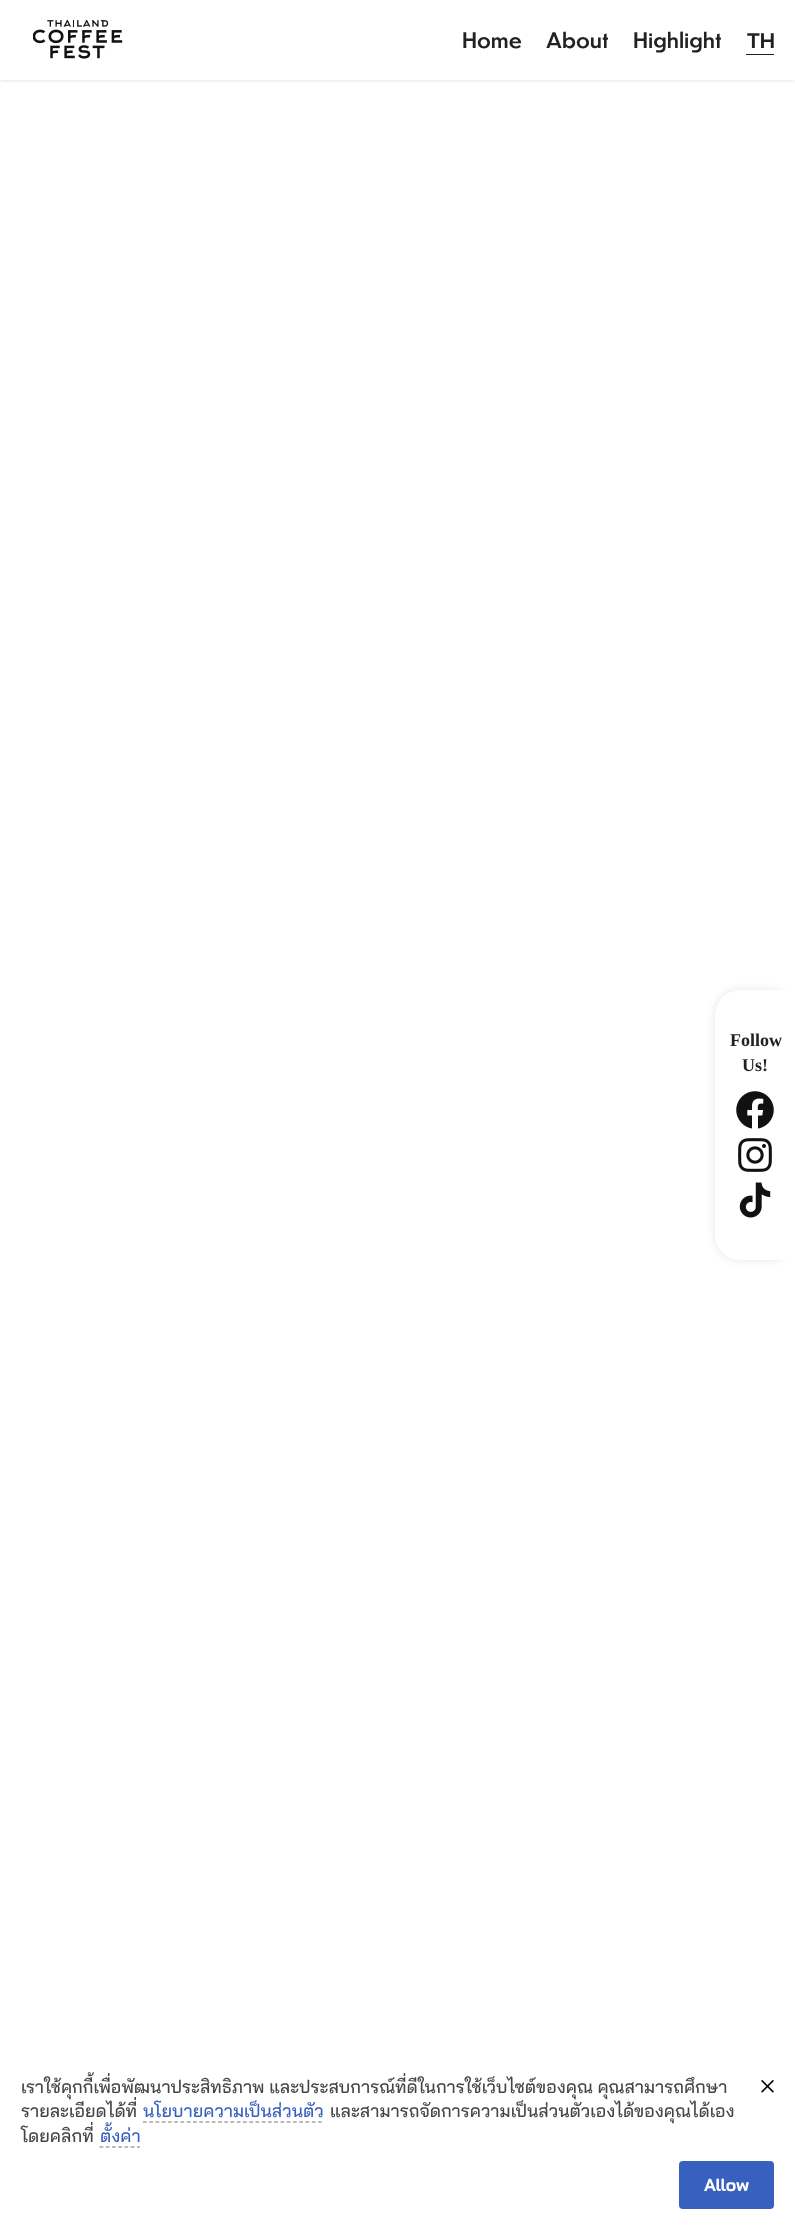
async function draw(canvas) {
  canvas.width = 795
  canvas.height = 2229
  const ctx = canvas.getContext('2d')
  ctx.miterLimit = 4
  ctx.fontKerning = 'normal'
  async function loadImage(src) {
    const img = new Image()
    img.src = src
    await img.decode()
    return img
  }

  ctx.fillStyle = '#fff'
  ctx.fillRect(0, 0, 795, 2229)
  ctx.save()
  ctx.beginPath()
  ctx.rect(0, 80, 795, 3)
  ctx.clip()
  ctx.fillStyle = '#0000001a'
  ctx.filter = 'blur(2px)'
  ctx.beginPath()
  ctx.rect(0, 1, 795, 80)
  ctx.fill()
  ctx.filter = 'none'
  ctx.restore()
  ctx.drawImage(await loadImage('image0.png'), 33, 20, 90, 39)
  ctx.font = '500 21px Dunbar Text'
  ctx.fillStyle = '#222'
  ctx.fillText('Home', 462, 48)
  ctx.fillText('About', 546, 48)
  ctx.fillText('Highlight', 633, 48)
  ctx.font = 'bold 21px Bai Jamjuree'
  ctx.fillText('TH', 747, 48)
  ctx.fillRect(746, 54, 28, 1)
  ctx.fillStyle = '#0000001a'
  ctx.filter = 'blur(4px)'
  ctx.beginPath()
  ctx.roundRect(715, 990, 80, 270, 25)
  ctx.fill()
  ctx.filter = 'none'
  ctx.fillStyle = '#fff'
  ctx.beginPath()
  ctx.roundRect(715, 990, 80, 270, [25, 0, 0, 25])
  ctx.fill()
  ctx.font = 'bold 18px Liberation Serif'
  ctx.fillStyle = '#222'
  ctx.fillText('Follow', 730, 1046)
  ctx.fillText('Us!', 742, 1071)
  ctx.drawImage(await loadImage('image1.png'), 736, 1091, 38, 38)
  ctx.drawImage(await loadImage('image2.png'), 738, 1138, 34, 34)
  ctx.drawImage(await loadImage('image3.png'), 739, 1182, 32, 36)
  ctx.font = '500 17.5px Bai Jamjuree'
  ctx.fillStyle = '#444'
  ctx.fillText('เราใช้คุกกี้เพื่อพัฒนาประสิทธิภาพ และประสบการณ์ที่ดีในการใช้เว็บไซต์ของคุณ คุณสามารถศึกษา', 21, 2093)
  ctx.fillText('รายละเอียดได้ที่', 21, 2117)
  ctx.fillStyle = '#3860be'
  ctx.fillText('นโยบายความเป็นส่วนตัว', 143, 2117)
  ctx.beginPath()
  ctx.moveTo(143, 2122)
  ctx.lineTo(323.5, 2122)
  ctx.strokeStyle = '#71767f'
  ctx.lineWidth = 1.2
  ctx.setLineDash([3.75, 2.5])
  ctx.stroke()
  ctx.fillStyle = '#444'
  ctx.fillText('และสามารถจัดการความเป็นส่วนตัวเองได้ของคุณได้เอง', 330, 2117)
  ctx.fillText('โดยคลิกที่', 21, 2142)
  ctx.fillStyle = '#3860be'
  ctx.fillText('ตั้งค่า', 100, 2142)
  ctx.beginPath()
  ctx.moveTo(99.5, 2147)
  ctx.lineTo(140, 2147)
  ctx.stroke()
  ctx.drawImage(await loadImage('image4.png'), 761, 2080, 13, 13)
  ctx.beginPath()
  ctx.roundRect(679, 2161, 95, 48, 4)
  ctx.fill()
  ctx.font = 'bold 17.5px Bai Jamjuree'
  ctx.fillStyle = '#fff'
  ctx.fillText('Allow', 704, 2191)
}

draw(document.querySelector('canvas'))
